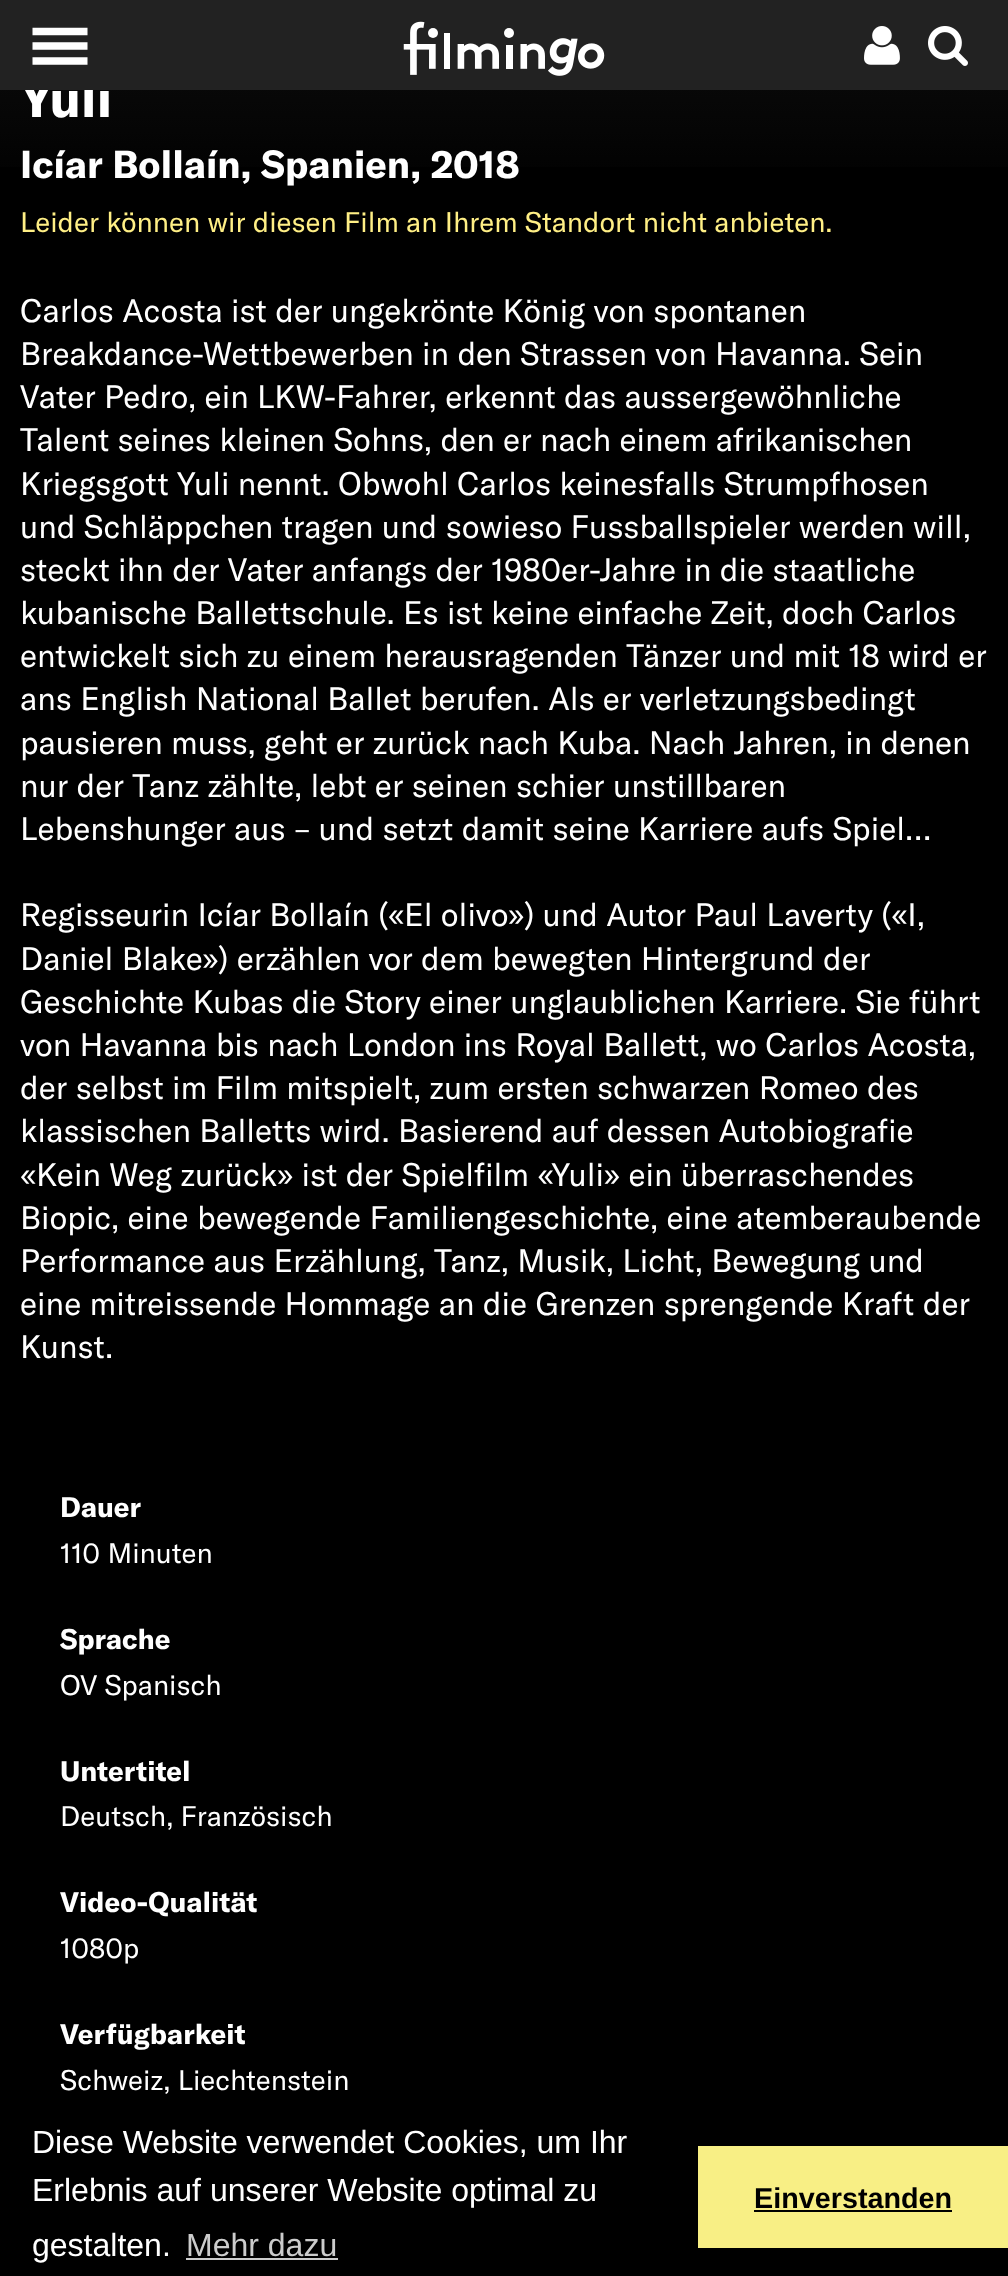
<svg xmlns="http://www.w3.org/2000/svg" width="1008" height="2276">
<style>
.a{font:bold 52px GT America;fill:#fff}
.b{font:bold 38.4px GT America;fill:#fff}
.c{font:28px GT America;fill:#ffef85}
.d{font:32px GT America;fill:#fff}
.e{font:bold 28px GT America;fill:#fff}
.f{font:28px GT America;fill:#fff}
.g{font:32px Liberation Sans;fill:#fff}
.h{font:32px Liberation Sans;fill:#ccc}
.i{font:bold 28.75px Liberation Sans;fill:#000}
</style>
<defs>
<linearGradient id="g1" gradientUnits="userSpaceOnUse" x1="504" y1="-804" x2="504" y2="204"><stop offset="0" stop-color="#222"/><stop offset="0.5" stop-color="#222"/><stop offset="1" stop-color="#000"/></linearGradient>
</defs>
<rect width="100%" height="100%" fill="#000"/>
<path fill="url(#g1)" d="M0 90h1008v77H0z"/>
<path fill="#ccc" d="M186 2258h152v2H186z"/>
<path fill="#f8ef85" d="M698 2146h310v102H698z"/>
<path fill="#000" d="M754 2210h198v2H754z"/>
<text class="a" x="20" y="117">Yuli</text>
<path fill="#222" d="M0 0h1008v90H0z"/>
<path fill="none" stroke="#fff" stroke-width="7.3" d="M32.5 31.5h55m-55 14.5h55m-55 15h55"/>
<circle fill="#fff" cx="509" cy="33" r="5"/>
<circle fill="#fff" cx="433" cy="33" r="5"/>
<image href="3.png" x="403" y="21" width="202" height="55"/>
<image href="1.png" x="864" y="26" width="36" height="39"/>
<image href="2.png" x="928" y="26" width="40" height="40"/>
<text class="b" x="20" y="178">Icíar Bollaín, Spanien, 2018</text>
<text class="c" x="20" y="232">Leider können wir diesen Film an Ihrem Standort nicht anbieten.</text>
<text class="d" x="20" y="322">Carlos Acosta ist der ungekrönte König von spontanen</text>
<text class="d" x="20" y="365">Breakdance-Wettbewerben in den Strassen von Havanna. Sein</text>
<text class="d" x="20" y="408">Vater Pedro, ein LKW-Fahrer, erkennt das aussergewöhnliche</text>
<text class="d" x="20" y="451">Talent seines kleinen Sohns, den er nach einem afrikanischen</text>
<text class="d" x="20" y="495">Kriegsgott Yuli nennt. Obwohl Carlos keinesfalls Strumpfhosen</text>
<text class="d" x="20" y="538">und Schläppchen tragen und sowieso Fussballspieler werden will,</text>
<text class="d" x="20" y="581">steckt ihn der Vater anfangs der 1980er-Jahre in die staatliche</text>
<text class="d" x="20" y="624">kubanische Ballettschule. Es ist keine einfache Zeit, doch Carlos</text>
<text class="d" x="20" y="667">entwickelt sich zu einem herausragenden Tänzer und mit 18 wird er</text>
<text class="d" x="20" y="710">ans English National Ballet berufen. Als er verletzungsbedingt</text>
<text class="d" x="20" y="754">pausieren muss, geht er zurück nach Kuba. Nach Jahren, in denen</text>
<text class="d" x="20" y="797">nur der Tanz zählte, lebt er seinen schier unstillbaren</text>
<text class="d" x="20" y="840">Lebenshunger aus – und setzt damit seine Karriere aufs Spiel…</text>
<text class="d" x="20" y="926">Regisseurin Icíar Bollaín («El olivo») und Autor Paul Laverty («I,</text>
<text class="d" x="20" y="970">Daniel Blake») erzählen vor dem bewegten Hintergrund der</text>
<text class="d" x="20" y="1013">Geschichte Kubas die Story einer unglaublichen Karriere. Sie führt</text>
<text class="d" x="20" y="1056">von Havanna bis nach London ins Royal Ballett, wo Carlos Acosta,</text>
<text class="d" x="20" y="1099">der selbst im Film mitspielt, zum ersten schwarzen Romeo des</text>
<text class="d" x="20" y="1142">klassischen Balletts wird. Basierend auf dessen Autobiografie</text>
<text class="d" x="20" y="1186">«Kein Weg zurück» ist der Spielfilm «Yuli» ein überraschendes</text>
<text class="d" x="20" y="1229">Biopic, eine bewegende Familiengeschichte, eine atemberaubende</text>
<text class="d" x="20" y="1272">Performance aus Erzählung, Tanz, Musik, Licht, Bewegung und</text>
<text class="d" x="20" y="1315">eine mitreissende Hommage an die Grenzen sprengende Kraft der</text>
<text class="d" x="20" y="1358">Kunst.</text>
<text class="e" x="60" y="1517">Dauer</text>
<text class="f" x="60" y="1563">110 Minuten</text>
<text class="e" x="60" y="1649">Sprache</text>
<text class="f" x="60" y="1695">OV Spanisch</text>
<text class="e" x="60" y="1781">Untertitel</text>
<text class="f" x="60" y="1826">Deutsch, Französisch</text>
<text class="e" x="60" y="1912">Video-Qualität</text>
<text class="f" x="60" y="1958">1080p</text>
<text class="e" x="60" y="2044">Verfügbarkeit</text>
<text class="f" x="60" y="2090">Schweiz, Liechtenstein</text>
<text class="g" x="32" y="2153">Diese Website verwendet Cookies, um Ihr</text>
<text class="g" x="32" y="2201">Erlebnis auf unserer Website optimal zu</text>
<text class="g" x="32" y="2256">gestalten.</text>
<text class="h" x="186" y="2256">Mehr dazu</text>
<text class="i" x="754" y="2208">Einverstanden</text>
</svg>
